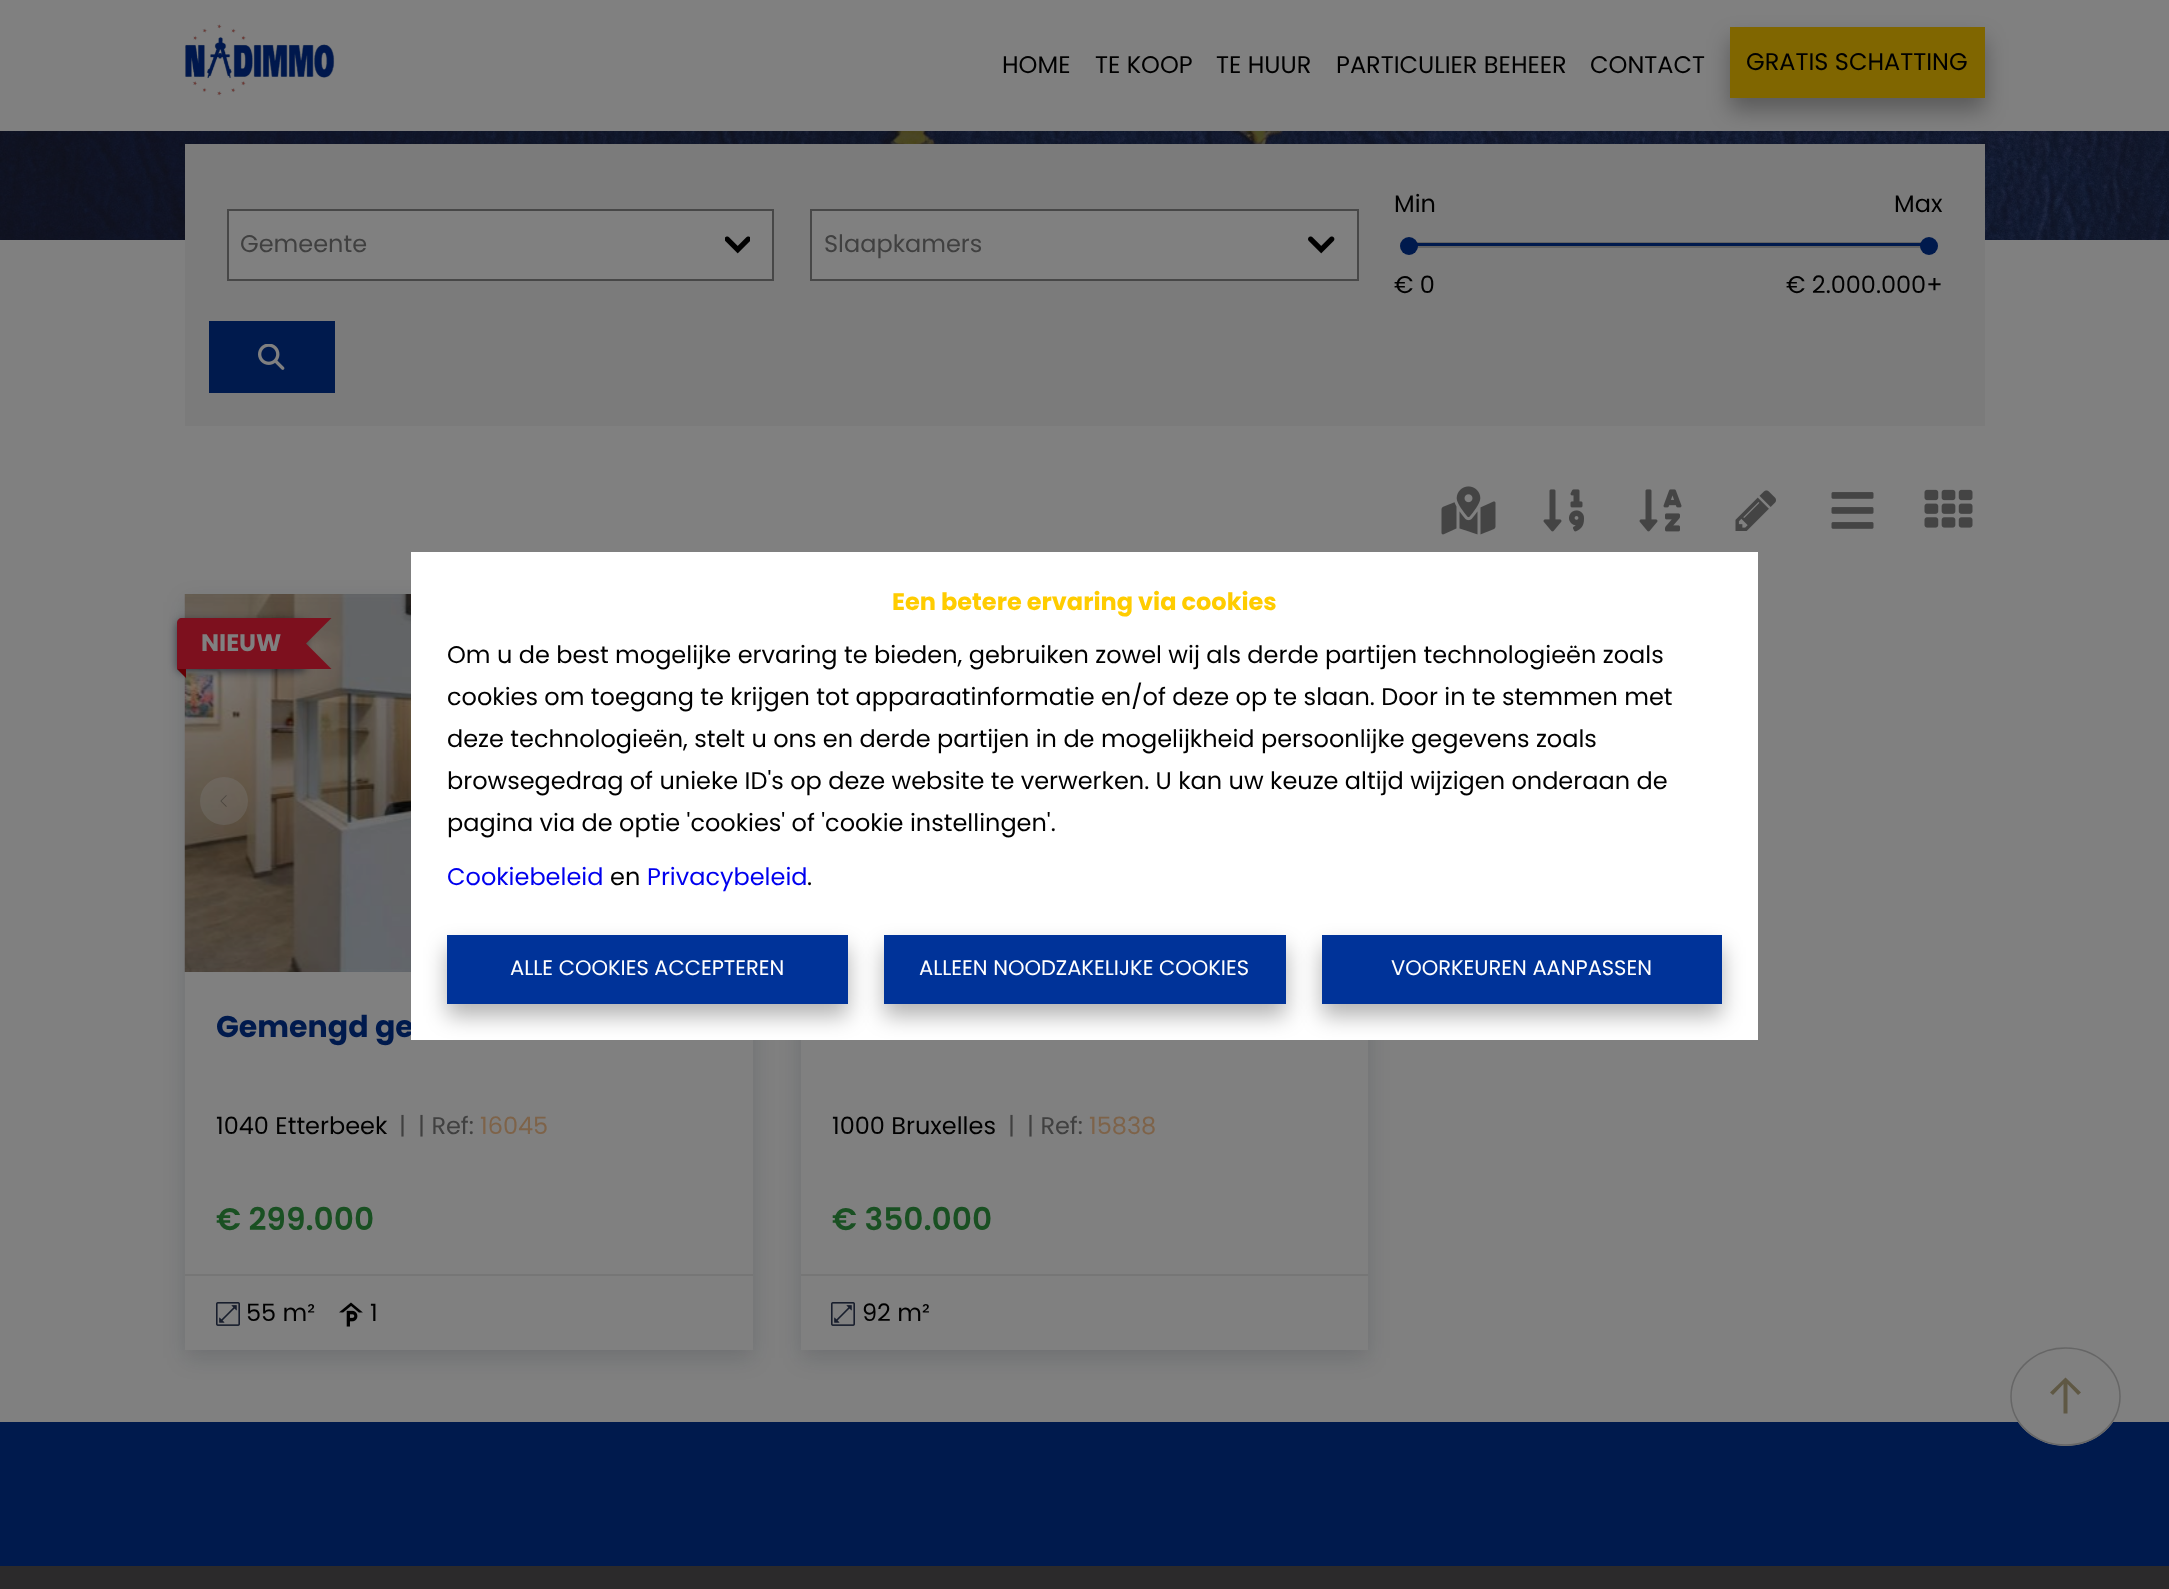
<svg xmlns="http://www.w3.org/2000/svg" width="2169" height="1589">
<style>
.a{font:24px Poppins;fill:#000}
.b{font:24px Poppins;fill:#404040}
.c{font:bold 24px Poppins;fill:#808080}
.d{font:bold 30px Poppins;fill:#001a4d}
.e{font:24px Poppins;fill:#7e6349}
.f{font:600 31.25px Poppins;fill:#195022}
.g{font:bold 24px Poppins;fill:#fc0}
.h{font:24px Poppins;fill:#00e}
.i{font:21px Poppins;fill:#fff}
</style>
<defs>
<clipPath id="clip1"><path d="M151 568h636v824h-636zm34 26h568v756h-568z" clip-rule="evenodd"/></clipPath>
<clipPath id="clip2"><path d="M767 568h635v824h-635zm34 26h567v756h-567z" clip-rule="evenodd"/></clipPath>
</defs>
<rect width="100%" height="100%" fill="#808080"/>
<image href="1.png" x="185" y="24" width="150" height="72"/>
<image href="2.png" x="0" y="131" width="2169" height="109"/>
<path fill="#0000004d" filter="blur(11px)" d="M1730 39h255v71H1730z"/>
<path fill="#806600" d="M1730 27h255v71H1730z"/>
<path fill="#7b7b7b" d="M185 144h1800v282H185z"/>
<path fill="#808080" stroke="#474747" stroke-width="2" d="M228 210h545v70H228z"/>
<image href="3.png" x="725" y="236" width="25" height="18"/>
<path fill="#808080" stroke="#474747" stroke-width="2" d="M811 210h547v70H811z"/>
<image href="4.png" x="1308" y="236" width="27" height="18"/>
<path fill="none" stroke="#636363" stroke-width="2" d="M1408 243h522v4H1408z"/>
<path fill="#001a4d" d="M1409 243h520v3H1409z"/>
<circle fill="#001a4d" cx="1409" cy="246" r="9"/>
<circle fill="#001a4d" cx="1929" cy="246" r="9"/>
<path fill="#001a4d" d="M209 321h126v72H209z"/>
<image href="5.png" x="258" y="344" width="27" height="26"/>
<image href="6.png" x="1441" y="486" width="55" height="49"/>
<image href="7.png" x="1543" y="489" width="41" height="43"/>
<image href="8.png" x="1639" y="489" width="43" height="43"/>
<image href="9.png" x="1735" y="490" width="41" height="41"/>
<image href="10.png" x="1831" y="492" width="43" height="37"/>
<image href="11.png" x="1924" y="489" width="49" height="39"/>
<g clip-path="url(#clip1)">
<path fill="#09112026" filter="blur(11px)" d="M185 602h568v756H185z"/>
</g>
<image href="12.png" x="184" y="594" width="227" height="378"/>
<rect fill="#09112099" filter="blur(4.5px)" x="177" y="621" width="129" height="51" rx="5"/>
<path fill="#7d101e" d="M182 618h124v51h-129v-46c0-3 2-5 5-5z"/>
<path fill="#7d101e" d="M306 643.5v-25.5h25.5z"/>
<path fill="#7d101e" d="M306 669v-25.5l25.5 25.5z"/>
<path fill="#640005" d="M177 669h9v9z"/>
<circle fill="#8080804d" cx="224" cy="801" r="24"/>
<image href="13.png" x="220" y="795" width="7" height="12"/>
<path fill="#767676" d="M185 1274h568v2H185z"/>
<image href="14.png" x="216" y="1302" width="24" height="24"/>
<image href="15.png" x="339" y="1302" width="24" height="25"/>
<g clip-path="url(#clip2)">
<path fill="#09112026" filter="blur(11px)" d="M801 602h567v756H801z"/>
</g>
<path fill="#767676" d="M801 1274h567v2H801z"/>
<image href="14.png" x="831" y="1302" width="24" height="24"/>
<path fill="#001a4d" d="M0 1422h2169v144H0z"/>
<ellipse fill="#808080" cx="2065.5" cy="1396.5" rx="55.5" ry="49.5"/>
<path fill="none" stroke="#666" stroke-width="1.5" d="M2065.5 1348c30 0 54.5 21.5 54.5 48.5c0 27-24.5 48.5-54.5 48.5c-30 0-54.5-21.5-54.5-48.5c0-27 24.5-48.5 54.5-48.5z"/>
<path fill="#5f5844" d="M2063.5 1384l-10.5 11l-3-2.5l15.5-15l15.5 15l-3 2.5l-10.5-11v29.5h-4z"/>
<path fill="#2b2a2b" d="M0 1566h2169v23H0z"/>
<text class="a" x="1002" y="73">HOME</text>
<text class="a" x="1095" y="73">TE KOOP</text>
<text class="a" x="1216" y="73">TE HUUR</text>
<text class="a" x="1336" y="73">PARTICULIER BEHEER</text>
<text class="a" x="1590" y="73">CONTACT</text>
<text class="a" x="1746" y="70">GRATIS SCHATTING</text>
<text class="b" x="240" y="252">Gemeente</text>
<text class="b" x="824" y="252">Slaapkamers</text>
<text class="a" x="1394" y="212">Min</text>
<text class="a" x="1894" y="212">Max</text>
<text class="a" x="1394" y="293">€ 0</text>
<text class="a" x="1786" y="293">€ 2.000.000+</text>
<text class="c" x="201" y="651">NIEUW</text>
<text class="d" x="216" y="1037">Gemengd ge</text>
<text class="a" x="216" y="1134">1040 Etterbeek</text>
<text class="b" x="399" y="1134">|</text>
<text class="b" x="418" y="1134">| Ref:</text>
<text class="e" x="480" y="1134">16045</text>
<text class="f" x="216" y="1230">€ 299.000</text>
<text class="a" x="246" y="1321">55 m²</text>
<text class="a" x="370" y="1321">1</text>
<text class="a" x="832" y="1134">1000 Bruxelles</text>
<text class="b" x="1008" y="1134">|</text>
<text class="b" x="1027" y="1134">| Ref:</text>
<text class="e" x="1089" y="1134">15838</text>
<text class="f" x="832" y="1230">€ 350.000</text>
<text class="a" x="862" y="1321">92 m²</text>
<path fill="#fff" d="M411 552h1347v488H411z"/>
<text class="g" x="892" y="610">Een betere ervaring via cookies</text>
<text class="a" x="447" y="663">Om u de best mogelijke ervaring te bieden, gebruiken zowel wij als derde partijen technologieën zoals</text>
<text class="a" x="447" y="705">cookies om toegang te krijgen tot apparaatinformatie en/of deze op te slaan. Door in te stemmen met</text>
<text class="a" x="447" y="747">deze technologieën, stelt u ons en derde partijen in de mogelijkheid persoonlijke gegevens zoals</text>
<text class="a" x="447" y="789">browsegedrag of unieke ID's op deze website te verwerken. U kan uw keuze altijd wijzigen onderaan de</text>
<text class="a" x="447" y="831">pagina via de optie 'cookies' of 'cookie instellingen'.</text>
<text class="h" x="447" y="885">Cookiebeleid</text>
<text class="a" x="610" y="885">en</text>
<text class="h" x="647" y="885">Privacybeleid</text>
<text class="a" x="807" y="885">.</text>
<path fill="#0000004d" filter="blur(11px)" d="M447 947h401v69H447z"/>
<path fill="#039" d="M447 935h401v69H447z"/>
<text class="i" x="510" y="975">ALLE COOKIES ACCEPTEREN</text>
<path fill="#0000004d" filter="blur(11px)" d="M884 947h402v69H884z"/>
<path fill="#039" d="M884 935h402v69H884z"/>
<text class="i" x="919" y="975">ALLEEN NOODZAKELIJKE COOKIES</text>
<path fill="#0000004d" filter="blur(11px)" d="M1322 947h400v69H1322z"/>
<path fill="#039" d="M1322 935h400v69H1322z"/>
<text class="i" x="1391" y="975">VOORKEUREN AANPASSEN</text>
</svg>
